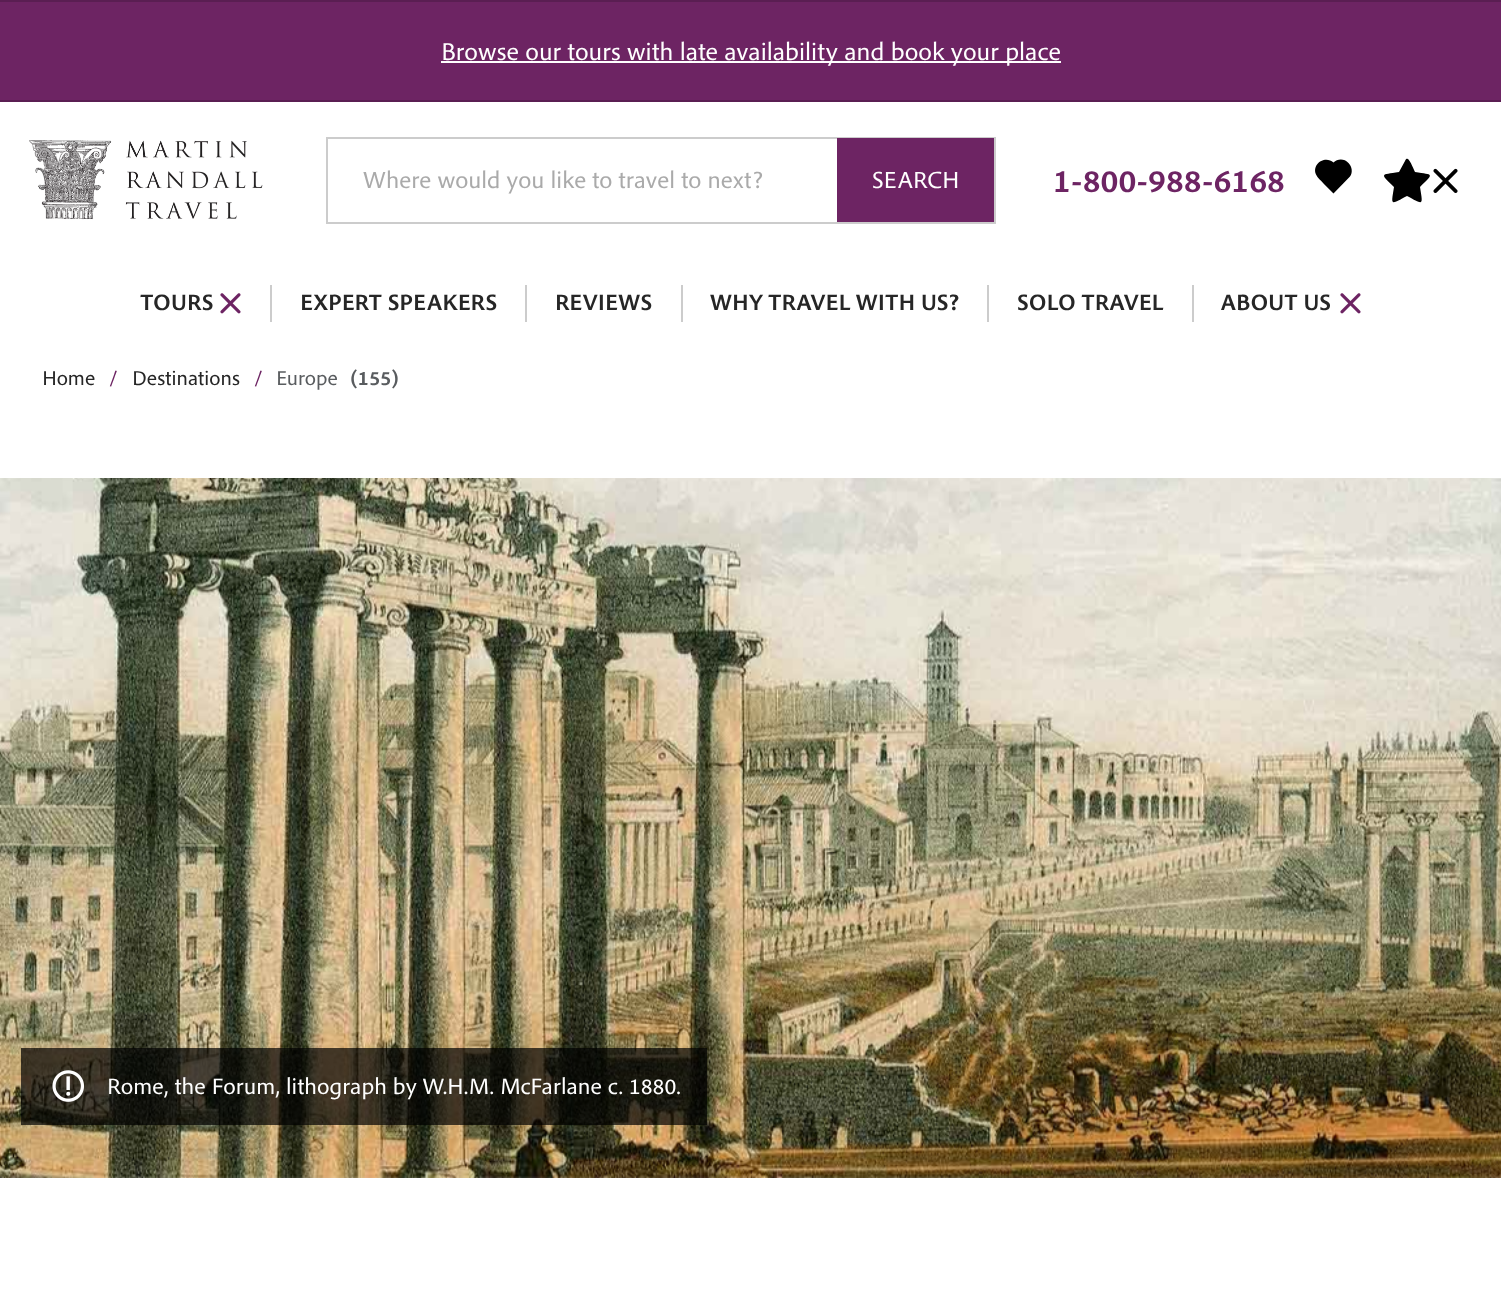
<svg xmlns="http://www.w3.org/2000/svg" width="1501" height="1298">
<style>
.a{font:25.5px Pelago;fill:#fff}
.b{font:24.5px Pelago;fill:#aaa}
.c{font:24.5px Pelago;fill:#fff}
.d{font:600 33.5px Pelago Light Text;fill:#6d2463}
.e{font:600 23.4px Pelago Light Text;fill:#262626}
.f{font:21px Pelago;fill:#262626}
.g{font:21px Pelago;fill:#6d2463}
.h{font:21px Pelago;fill:#595c5f}
.i{font:600 21px Pelago Light Text;fill:#595c5f}
.j{font:23.4px Pelago;fill:#fff}
</style>
<rect width="100%" height="100%" fill="#fff"/>
<path fill="#6d2463" stroke="#5a1e52" stroke-width="2" d="M-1 1h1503v100H-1z"/>
<path fill="#fff" d="M441 61h620v2H441z"/>
<image href="1.png" x="29" y="140" width="234" height="80"/>
<path fill="none" stroke="#ccc" stroke-width="2" d="M327 138h668v85H327z"/>
<path fill="#6d2463" d="M837 138h157v84H837z"/>
<path fill="#000" d="M1348.5 163c-4-4.5-11-4.5-15-.5c-8.5-7.5-22 1.5-17.5 12c1.5 3.5 5 6 7.5 9l10 10l16.5-17c3-4 2-10-1.5-13.5z"/>
<path fill="#000" d="M1405 161l-6 11c-19 3-19 1-5 15c-3 19-4 18 13 9c17 9 16 10 13-9c14-14 14-12-5-15c-3-6-7-18-10-11z"/>
<image href="2.png" x="1433" y="168" width="25" height="25"/>
<path fill="#ccc" d="M270 285h2v37H270z"/>
<image href="3.png" x="220" y="293" width="21" height="21"/>
<path fill="#ccc" d="M525 285h2v37H525z"/>
<path fill="#ccc" d="M681 285h2v37H681z"/>
<path fill="#ccc" d="M987 285h2v37H987z"/>
<path fill="#ccc" d="M1192 285h2v37H1192z"/>
<image href="3.png" x="1340" y="293" width="21" height="21"/>
<image href="4.png" x="0" y="478" width="1501" height="700"/>
<path fill="#000000b3" d="M21 1048h686v77H21z"/>
<image href="5.png" x="52" y="1070" width="32" height="32"/>
<text class="a" x="441" y="60">Browse our tours with late availability and book your place</text>
<text class="b" x="363" y="188">Where would you like to travel to next?</text>
<text class="c" x="872" y="188">SEARCH</text>
<text class="d" x="1053" y="192">1-800-988-6168</text>
<text class="e" x="140" y="310">TOURS</text>
<text class="e" x="300" y="310">EXPERT SPEAKERS</text>
<text class="e" x="555" y="310">REVIEWS</text>
<text class="e" x="710" y="310">WHY TRAVEL WITH US?</text>
<text class="e" x="1017" y="310">SOLO TRAVEL</text>
<text class="e" x="1221" y="310">ABOUT US</text>
<text class="f" x="42" y="385">Home</text>
<text class="g" x="109" y="385">/</text>
<text class="f" x="132" y="385">Destinations</text>
<text class="g" x="254" y="385">/</text>
<text class="h" x="276" y="385">Europe</text>
<text class="i" x="350" y="385">(155)</text>
<text class="j" x="107" y="1094">Rome, the Forum, lithograph by W.H.M. McFarlane c. 1880.</text>
</svg>
